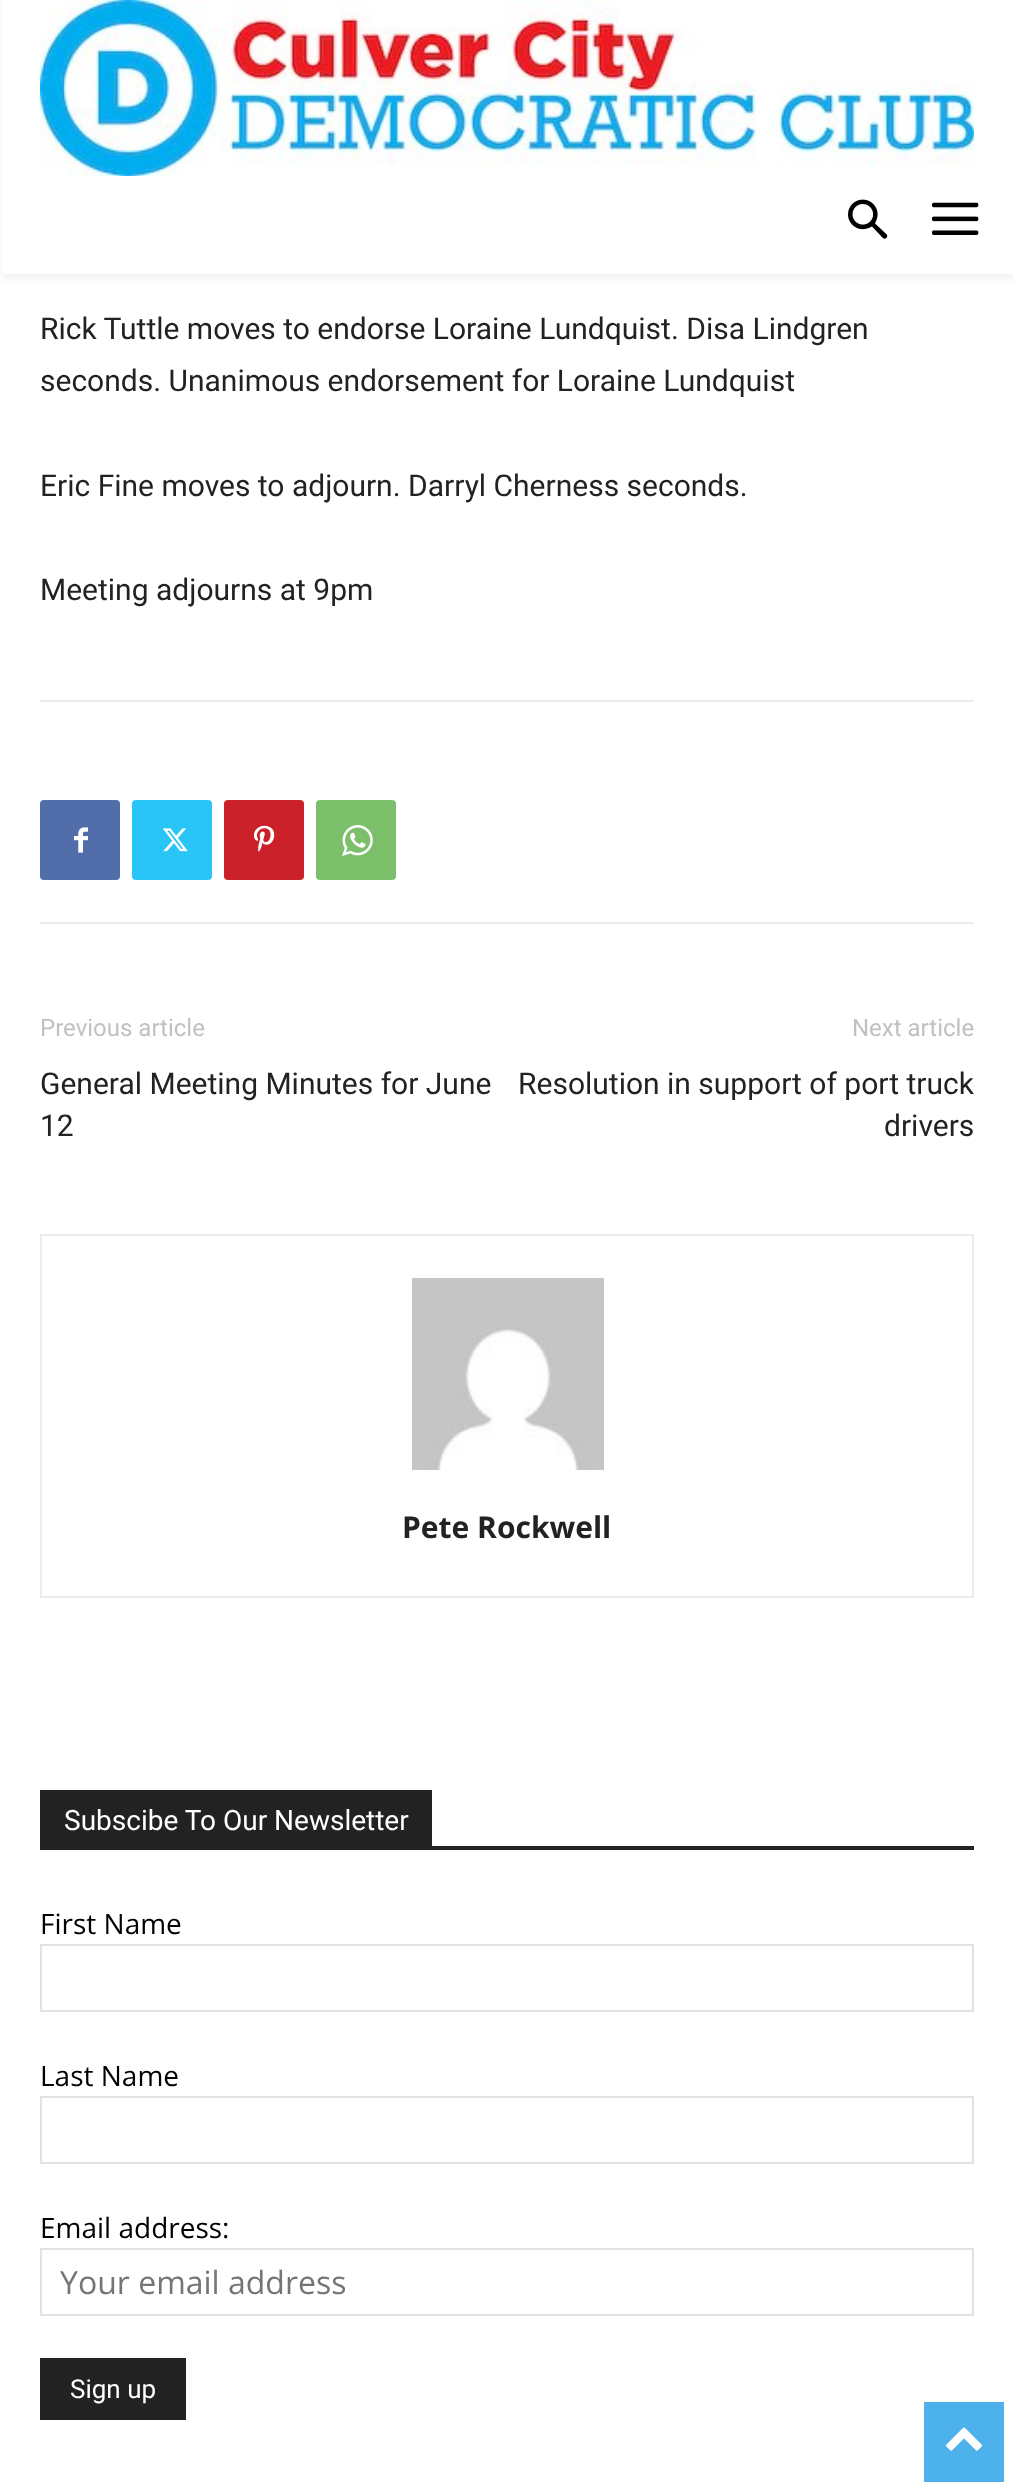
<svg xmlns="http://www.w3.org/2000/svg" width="1013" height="2489">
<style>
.a{font:30px Roboto;fill:#222}
.b{font:24px Roboto;fill:#c1c1c1}
.c{font:bold 30px Open Sans;fill:#222}
.d{font:28px Roboto;fill:#fff}
.e{font:28px Open Sans;fill:#000}
.f{font:32px Open Sans;fill:#757575}
.g{font:26px Roboto;fill:#fff}
</style>
<defs>
<clipPath id="clip1"><path d="M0 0h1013v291h-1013zm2 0h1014v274h-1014z" clip-rule="evenodd"/></clipPath>
</defs>
<rect width="100%" height="100%" fill="#fff"/>
<image href="1.png" x="40" y="0" width="934" height="176"/>
<image href="2.png" x="848" y="199" width="40" height="40"/>
<image href="3.png" x="932" y="202" width="47" height="33"/>
<g clip-path="url(#clip1)">
<path fill="#0000000f" filter="blur(4px)" d="M2 4h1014v274H2z"/>
</g>
<path fill="#ededed" d="M40 700h934v2H40z"/>
<path fill="#ededed" d="M40 922h934v2H40z"/>
<rect fill="#516eab" x="40" y="800" width="80" height="80" rx="4"/>
<image href="4.png" x="74" y="827" width="14" height="26"/>
<rect fill="#29c5f6" x="132" y="800" width="80" height="80" rx="4"/>
<image href="5.png" x="162" y="828" width="26" height="24"/>
<rect fill="#ca212a" x="224" y="800" width="80" height="80" rx="4"/>
<image href="6.png" x="254" y="825" width="21" height="27"/>
<rect fill="#7bbf6a" x="316" y="800" width="80" height="80" rx="4"/>
<image href="7.png" x="342" y="825" width="31" height="31"/>
<path fill="none" stroke="#ededed" stroke-width="2" d="M41 1235h932v362H41z"/>
<image href="8.png" x="412" y="1278" width="192" height="192"/>
<path fill="#222" d="M40 1846h934v4H40z"/>
<path fill="#222" d="M40 1790h392v56H40z"/>
<path fill="none" stroke="#e1e1e1" stroke-width="2" d="M41 1945h932v66H41z"/>
<path fill="none" stroke="#e1e1e1" stroke-width="2" d="M41 2097h932v66H41z"/>
<path fill="none" stroke="#e1e1e1" stroke-width="2" d="M41 2249h932v66H41z"/>
<path fill="#222" d="M40 2358h146v62H40z"/>
<path fill="#4db2ec" d="M924 2402h80v80H924z"/>
<image href="9.png" x="946" y="2427" width="36" height="24"/>
<text class="a" x="40" y="339">Rick Tuttle moves to endorse Loraine Lundquist. Disa Lindgren</text>
<text class="a" x="40" y="391">seconds. Unanimous endorsement for Loraine Lundquist</text>
<text class="a" x="40" y="496">Eric Fine moves to adjourn. Darryl Cherness seconds.</text>
<text class="a" x="40" y="600">Meeting adjourns at 9pm</text>
<text class="b" x="40" y="1036">Previous article</text>
<text class="a" x="40" y="1094">General Meeting Minutes for June</text>
<text class="a" x="40" y="1136">12</text>
<text class="b" x="852" y="1036">Next article</text>
<text class="a" x="518" y="1094">Resolution in support of port truck</text>
<text class="a" x="884" y="1136">drivers</text>
<text class="c" x="402" y="1538">Pete Rockwell</text>
<text class="d" x="64" y="1830">Subscibe To Our Newsletter</text>
<text class="e" x="40" y="1934">First Name</text>
<text class="e" x="40" y="2086">Last Name</text>
<text class="e" x="40" y="2238">Email address:</text>
<text class="f" x="60" y="2294">Your email address</text>
<text class="g" x="70" y="2398">Sign up</text>
</svg>
